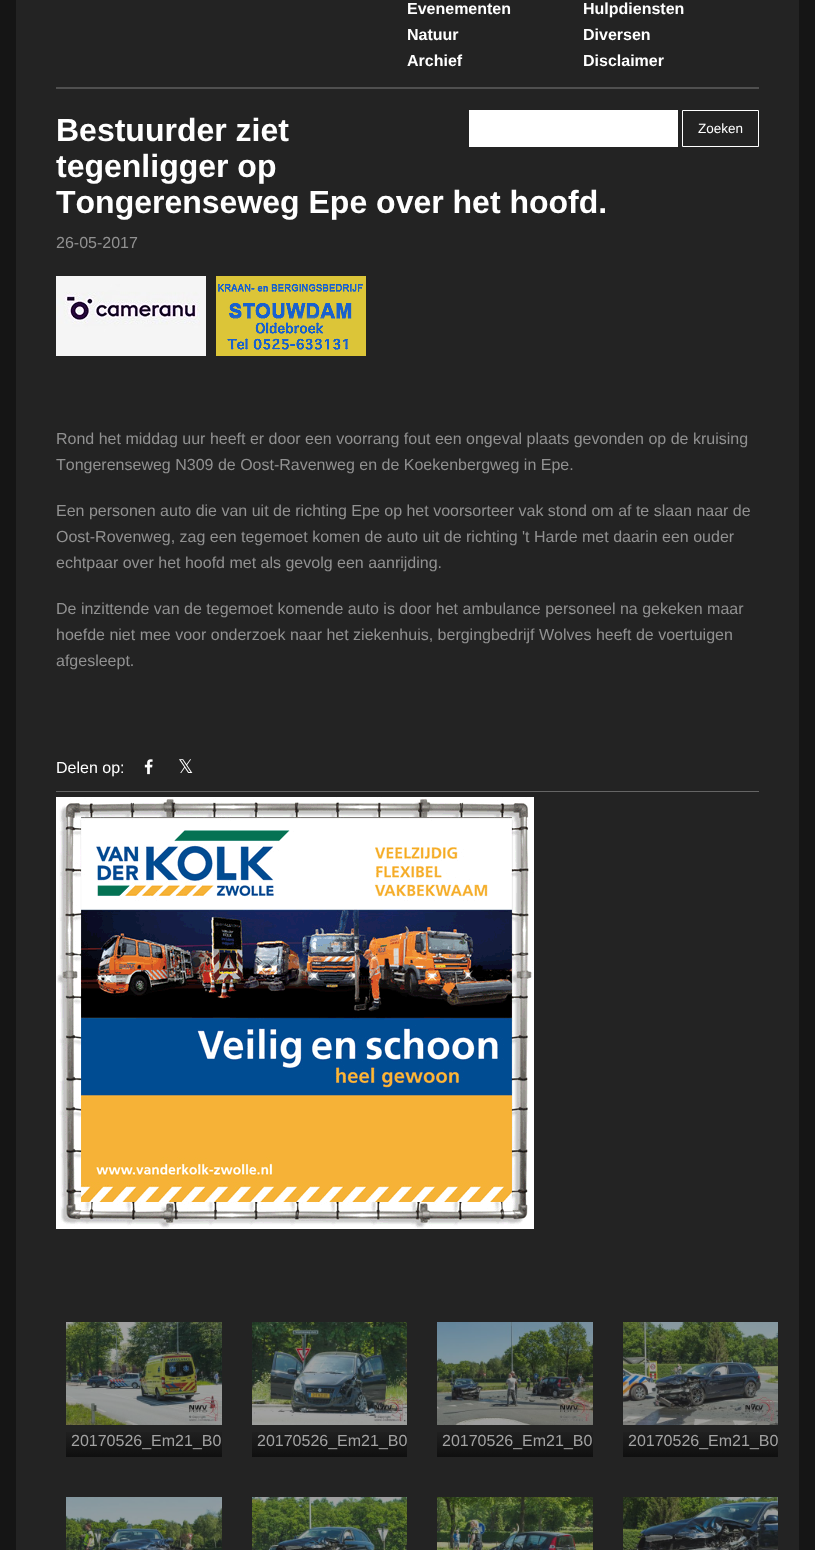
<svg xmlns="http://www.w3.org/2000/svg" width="815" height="1550">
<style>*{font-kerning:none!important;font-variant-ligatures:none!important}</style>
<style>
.a{font:bold 16px Arimo;fill:#fff}
.b{font:bold 32px Arimo;fill:#fff}
.c{font:16px Arimo;fill:#919191}
.d{font:16px Arimo;fill:#fff}
.e{font:19px DejaVu Sans;fill:#fff}
.f{font:13.5px Liberation Sans;fill:#fff}
.g{font:16px Arimo;fill:#a2a2a2}
</style>
<defs>
<linearGradient id="g1" gradientUnits="userSpaceOnUse" x1="144" y1="1428" x2="144" y2="1457"><stop offset="0" stop-color="#232323"/><stop offset="1" stop-color="#0f0f0f"/></linearGradient>
<linearGradient id="g2" gradientUnits="userSpaceOnUse" x1="330" y1="1428" x2="330" y2="1457"><stop offset="0" stop-color="#232323"/><stop offset="1" stop-color="#0f0f0f"/></linearGradient>
<linearGradient id="g3" gradientUnits="userSpaceOnUse" x1="515" y1="1428" x2="515" y2="1457"><stop offset="0" stop-color="#232323"/><stop offset="1" stop-color="#0f0f0f"/></linearGradient>
<linearGradient id="g4" gradientUnits="userSpaceOnUse" x1="701" y1="1428" x2="701" y2="1457"><stop offset="0" stop-color="#232323"/><stop offset="1" stop-color="#0f0f0f"/></linearGradient>
</defs>
<rect width="100%" height="100%" fill="#151515"/>
<path fill="#232323" d="M16 0h783v1550H16z"/>
<path fill="#4f4f4f" d="M56 87h703v2H56z"/>
<image href="1.png" x="56" y="276" width="150" height="80"/>
<image href="2.png" x="216" y="276" width="150" height="80"/>
<path fill="#656565" d="M56 791h703v1H56z"/>
<image href="3.png" x="144" y="759" width="9" height="16"/>
<path fill="#fff" d="M469 110h209v37H469z"/>
<path fill="none" stroke="#fff" d="M682.5 110.5h76v36H682.5z"/>
<image href="4.png" x="56" y="797" width="478" height="432"/>
<image href="5.png" x="66" y="1322" width="156" height="103"/>
<path fill="url(#g1)" d="M66 1432h156v25H66z"/>
<image href="6.png" x="252" y="1322" width="155" height="103"/>
<path fill="url(#g2)" d="M252 1432h155v25H252z"/>
<image href="7.png" x="437" y="1322" width="156" height="103"/>
<path fill="url(#g3)" d="M437 1432h156v25H437z"/>
<image href="8.png" x="623" y="1322" width="155" height="103"/>
<path fill="url(#g4)" d="M623 1432h155v25H623z"/>
<image href="9.png" x="66" y="1497" width="156" height="53"/>
<image href="10.png" x="252" y="1497" width="155" height="53"/>
<image href="11.png" x="437" y="1497" width="156" height="53"/>
<image href="12.png" x="623" y="1497" width="155" height="53"/>
<text class="a" x="407" y="14">Evenementen</text>
<text class="a" x="583" y="14">Hulpdiensten</text>
<text class="a" x="407" y="40">Natuur</text>
<text class="a" x="583" y="40">Diversen</text>
<text class="a" x="407" y="66">Archief</text>
<text class="a" x="583" y="66">Disclaimer</text>
<text class="b" x="56" y="141">Bestuurder ziet</text>
<text class="b" x="56" y="177">tegenligger op</text>
<text class="b" x="56" y="213">Tongerenseweg Epe over het hoofd.</text>
<text class="c" x="56" y="248">26-05-2017</text>
<text class="c" x="56" y="444">Rond het middag uur heeft er door een voorrang fout een ongeval plaats gevonden op de kruising</text>
<text class="c" x="56" y="470">Tongerenseweg N309 de Oost-Ravenweg en de Koekenbergweg in Epe.</text>
<text class="c" x="56" y="516">Een personen auto die van uit de richting Epe op het voorsorteer vak stond om af te slaan naar de</text>
<text class="c" x="56" y="542">Oost-Rovenweg, zag een tegemoet komen de auto uit de richting 't Harde met daarin een ouder</text>
<text class="c" x="56" y="568">echtpaar over het hoofd met als gevolg een aanrijding.</text>
<text class="c" x="56" y="614">De inzittende van de tegemoet komende auto is door het ambulance personeel na gekeken maar</text>
<text class="c" x="56" y="640">hoefde niet mee voor onderzoek naar het ziekenhuis, bergingbedrijf Wolves heeft de voertuigen</text>
<text class="c" x="56" y="666">afgesleept.</text>
<text class="d" x="56" y="773">Delen op:</text>
<text class="e" x="178" y="773">𝕏</text>
<text class="f" x="698" y="133">Zoeken</text>
<text class="g" x="71" y="1446">20170526_Em21_B0</text>
<text class="g" x="257" y="1446">20170526_Em21_B0</text>
<text class="g" x="442" y="1446">20170526_Em21_B0</text>
<text class="g" x="628" y="1446">20170526_Em21_B0</text>
</svg>
